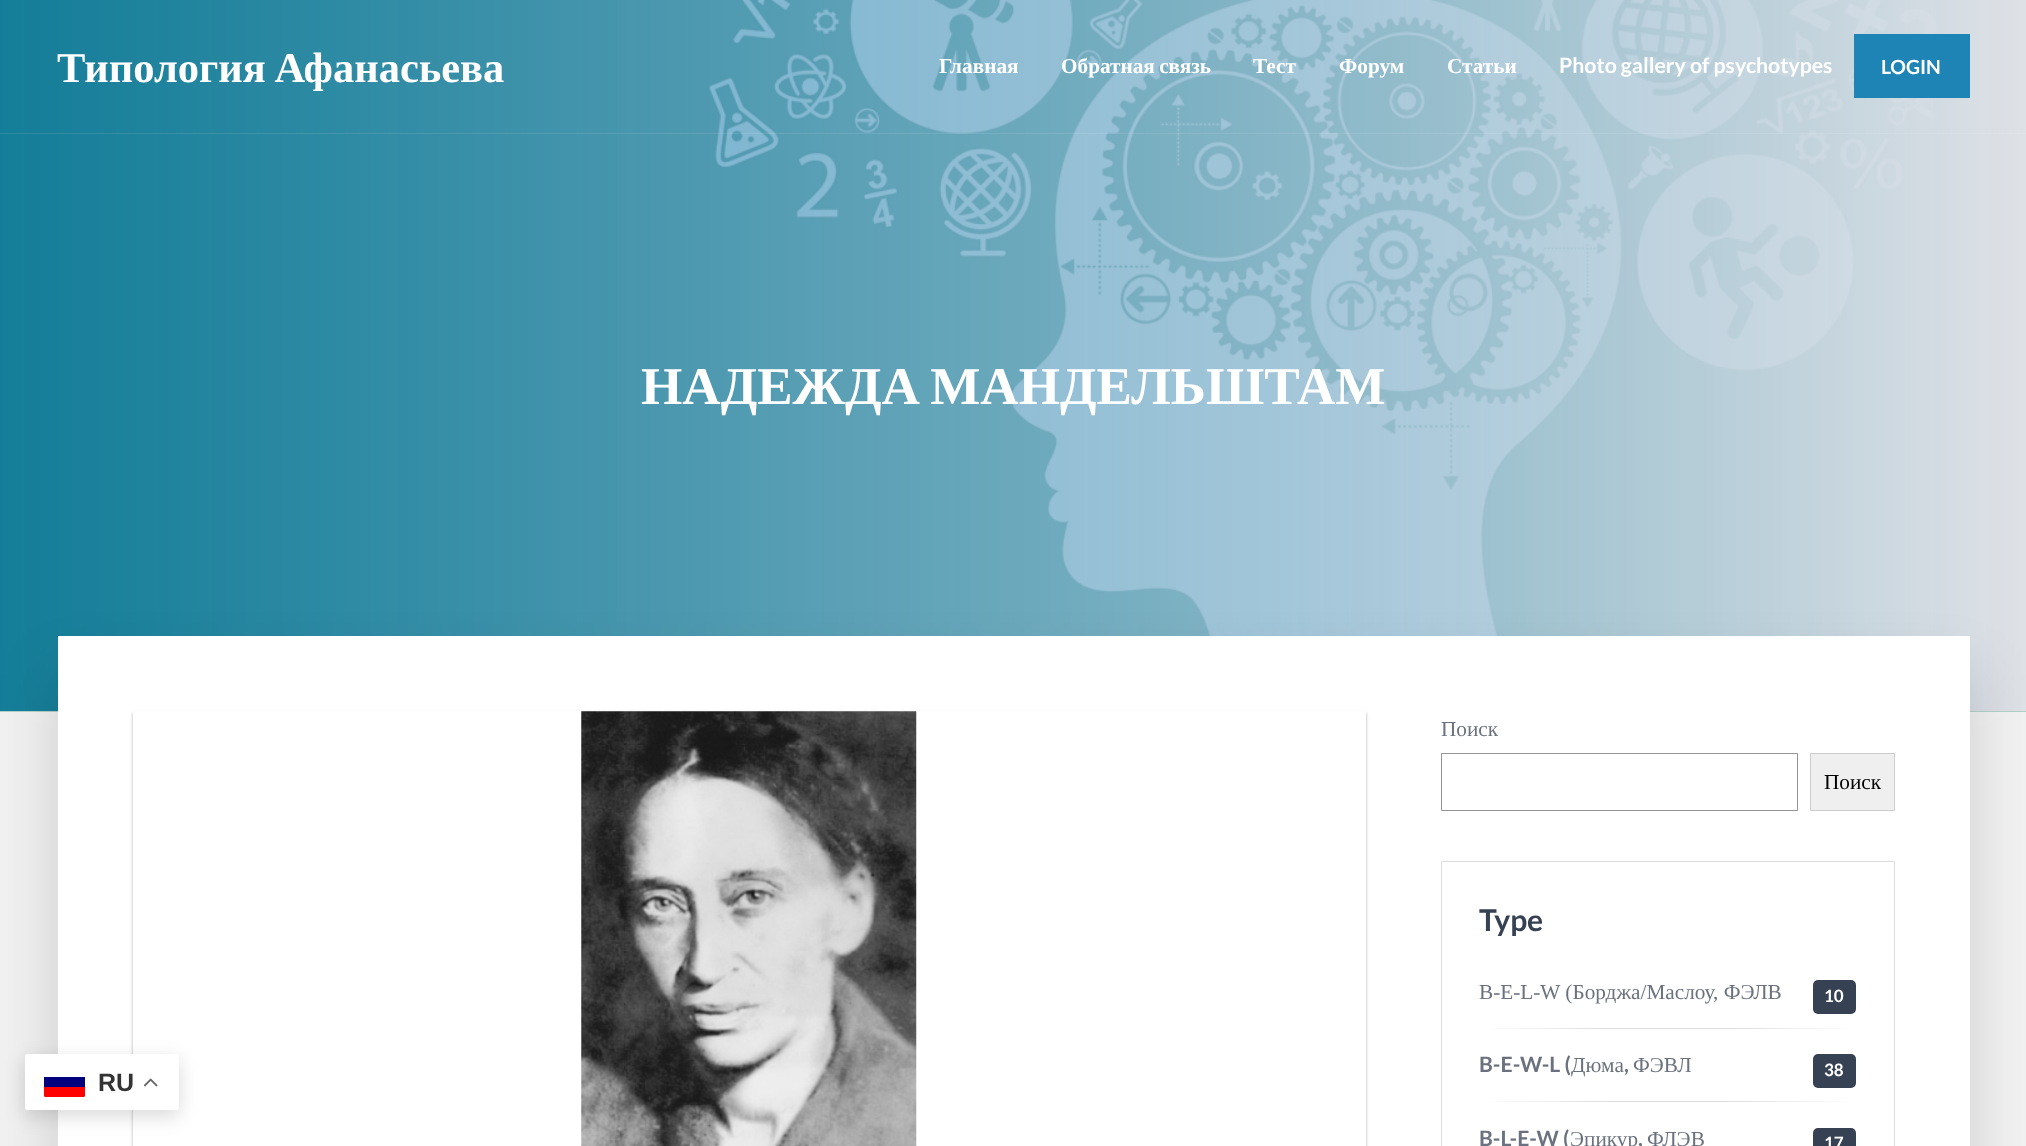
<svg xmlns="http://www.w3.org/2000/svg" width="2026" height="1146">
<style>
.a{font:bold 42.5px Liberation Serif;fill:#fff}
.b{font:bold 21.25px Liberation Serif;fill:#fff}
.c{font:bold 21.25px Lato;fill:#fff}
.d{font:bold 19.5px Lato;fill:#fff}
.e{font:bold 53.1px Liberation Serif;fill:#fff}
.f{font:bold 25px Liberation Sans;fill:#333}
.g{font:21.25px Liberation Serif;fill:#6b717e}
.h{font:21.25px Liberation Serif;fill:#000}
.i{font:bold 30px Lato;fill:#364253}
.j{font:bold 17px Lato;fill:#fff}
.k{font:bold 21.25px Lato;fill:#6b717e}
</style>
<defs>
<clipPath id="clip1"><rect x="44" y="1066" width="41" height="32" rx="4"/></clipPath>
<linearGradient id="g1" gradientUnits="userSpaceOnUse" x1="1480" y1="1028" x2="1856" y2="1028"><stop offset="0" stop-color="#fff"/><stop offset="0.33" stop-color="#ddd"/><stop offset="0.67" stop-color="#ddd"/><stop offset="1" stop-color="#fff"/></linearGradient>
<linearGradient id="g2" gradientUnits="userSpaceOnUse" x1="1480" y1="1102" x2="1856" y2="1102"><stop offset="0" stop-color="#fff"/><stop offset="0.33" stop-color="#ddd"/><stop offset="0.67" stop-color="#ddd"/><stop offset="1" stop-color="#fff"/></linearGradient>
</defs>
<rect width="100%" height="100%" fill="#f1f1f1"/>
<image href="1.png" x="0" y="0" width="2026" height="712"/>
<path fill="#ffffff1a" d="M0 133h2026v1H0z"/>
<path fill="#1d84b5" d="M1854 34h116v64H1854z"/>
<path fill="#01010126" filter="blur(31px)" d="M58 674h1912v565H58z"/>
<path fill="#fff" d="M58 636h1912v510H58z"/>
<path fill="#0000003d" filter="blur(1px)" d="M133 713h1233v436H133z"/>
<path fill="#0000001f" filter="blur(2px)" d="M133 713h1233v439H133z"/>
<path fill="#fff" d="M133 711h1233v435H133z"/>
<rect fill="#00000026" filter="blur(9.5px)" x="25" y="1060" width="154" height="56" rx="2.5"/>
<rect fill="#fff" x="25" y="1054" width="154" height="56" rx="2.5"/>
<g clip-path="url(#clip1)">
<path fill="#01017e" d="M44 1077h41v20H44z"/>
<path fill="#fe0101" d="M44 1087h41v10H44z"/>
</g>
<image href="2.png" x="144" y="1078" width="14" height="9"/>
<image href="3.png" x="581" y="711" width="336" height="435"/>
<path fill="none" stroke="#949494" d="M1441.5 753.5h356v57H1441.5z"/>
<path fill="#efefef" stroke="#ccc" d="M1810.5 753.5h84v57H1810.5z"/>
<path fill="none" stroke="#ddd" d="M1441.5 861.5h453v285H1441.5z"/>
<rect fill="#364253" x="1813" y="980" width="43" height="34" rx="5"/>
<path fill="url(#g1)" d="M1489 1028h358v1H1489z"/>
<rect fill="#364253" x="1813" y="1054" width="43" height="34" rx="5"/>
<path fill="url(#g2)" d="M1489 1101h358v1H1489z"/>
<rect fill="#364253" x="1813" y="1128" width="43" height="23" rx="5"/>
<text class="a" x="57" y="82" word-spacing="-2">Типология Афанасьева</text>
<text class="b" x="939" y="73">Главная</text>
<text class="b" x="1061" y="73" word-spacing="-1">Обратная связь</text>
<text class="b" x="1253" y="73">Тест</text>
<text class="b" x="1339" y="73">Форум</text>
<text class="b" x="1447" y="73">Статьи</text>
<text class="c" x="1559" y="73">Photo gallery of psychotypes</text>
<text class="d" x="1881" y="74">LOGIN</text>
<text class="e" x="641" y="404" word-spacing="-3">НАДЕЖДА МАНДЕЛЬШТАМ</text>
<text class="f" x="98" y="1091">RU</text>
<text class="g" x="1441" y="736">Поиск</text>
<text class="h" x="1824" y="789">Поиск</text>
<text class="i" x="1479" y="931">Type</text>
<text class="g" x="1479" y="999">B-E-L-W (Борджа/Маслоу, ФЭЛВ</text>
<text class="j" x="1824" y="1002">10</text>
<text class="k" x="1479" y="1072">B-E-W-L (</text>
<text class="g" x="1571" y="1072">Дюма</text>
<text class="k" x="1624" y="1072">,</text>
<text class="g" x="1633" y="1072">ФЭВЛ</text>
<text class="j" x="1824" y="1076">38</text>
<text class="k" x="1479" y="1146">B-L-E-W (</text>
<text class="g" x="1570" y="1146">Эпикур</text>
<text class="k" x="1638" y="1146">,</text>
<text class="g" x="1647" y="1146">ФЛЭВ</text>
<text class="j" x="1824" y="1149">17</text>
</svg>
